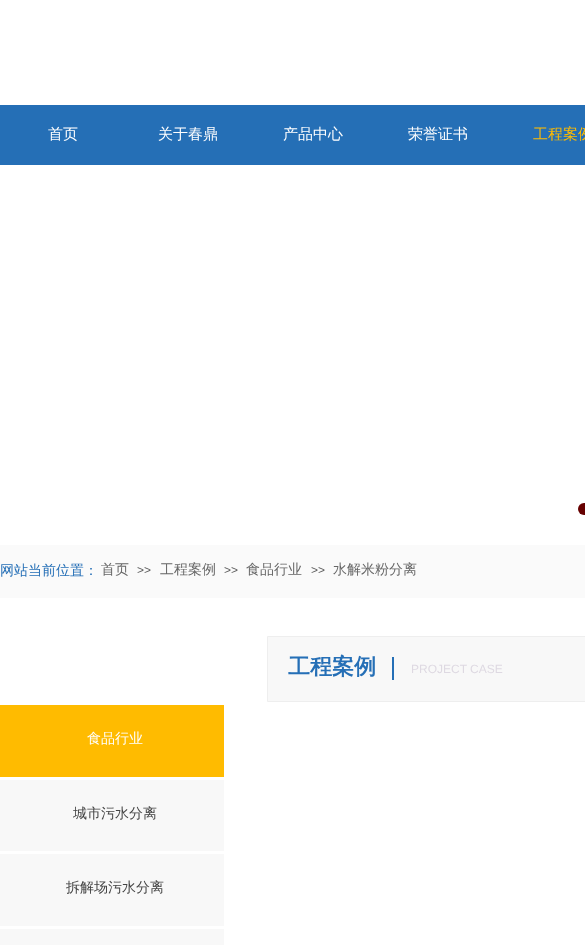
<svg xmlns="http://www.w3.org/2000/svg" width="585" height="945">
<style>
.a{font:500 15px WenQuanYi Zen Hei;fill:#fff}
.b{font:500 15px WenQuanYi Zen Hei;fill:#fb0}
.c{font:500 14px WenQuanYi Zen Hei;fill:#256fb6}
.d{font:500 14px WenQuanYi Zen Hei;fill:#666}
.e{font:12px Liberation Sans;fill:#5a5a5a}
.f{font:bold 22px WenQuanYi Zen Hei;fill:#256fb6}
.g{font:12px Liberation Sans;fill:#ded9e2}
.h{font:500 14px WenQuanYi Zen Hei;fill:#fff}
.i{font:500 14px WenQuanYi Zen Hei;fill:#434343}
</style>
<rect width="100%" height="100%" fill="#fff"/>
<path fill="#256fb6" d="M0 105h585v60H0z"/>
<circle fill="#600" cx="584" cy="509" r="6"/>
<path fill="#fafafa" d="M0 545h585v53H0z"/>
<path fill="#f8f8f8" stroke="#eee" d="M267.5 636.5h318v65H267.5z"/>
<path fill="#256fb6" d="M392 657h2v23H392z"/>
<path fill="#fb0" d="M0 705h224v72H0z"/>
<path fill="#f8f8f8" d="M0 780h224v71H0z"/>
<path fill="#f8f8f8" d="M0 854h224v72H0z"/>
<path fill="#f8f8f8" d="M0 929h224v16H0z"/>
<text class="a" x="48" y="139">首页</text>
<text class="a" x="158" y="139">关于春鼎</text>
<text class="a" x="283" y="139">产品中心</text>
<text class="a" x="408" y="139">荣誉证书</text>
<text class="b" x="533" y="139">工程案例</text>
<text class="c" x="0" y="575">网站当前位置：</text>
<text class="d" x="101" y="574">首页</text>
<text class="e" x="137" y="574">&gt;&gt;</text>
<text class="d" x="160" y="574">工程案例</text>
<text class="e" x="224" y="574">&gt;&gt;</text>
<text class="d" x="246" y="574">食品行业</text>
<text class="e" x="311" y="574">&gt;&gt;</text>
<text class="d" x="333" y="574">水解米粉分离</text>
<text class="f" x="288" y="674">工程案例</text>
<text class="g" x="411" y="673">PROJECT CASE</text>
<text class="h" x="87" y="743">食品行业</text>
<text class="i" x="73" y="818">城市污水分离</text>
<text class="i" x="66" y="892">拆解场污水分离</text>
</svg>
